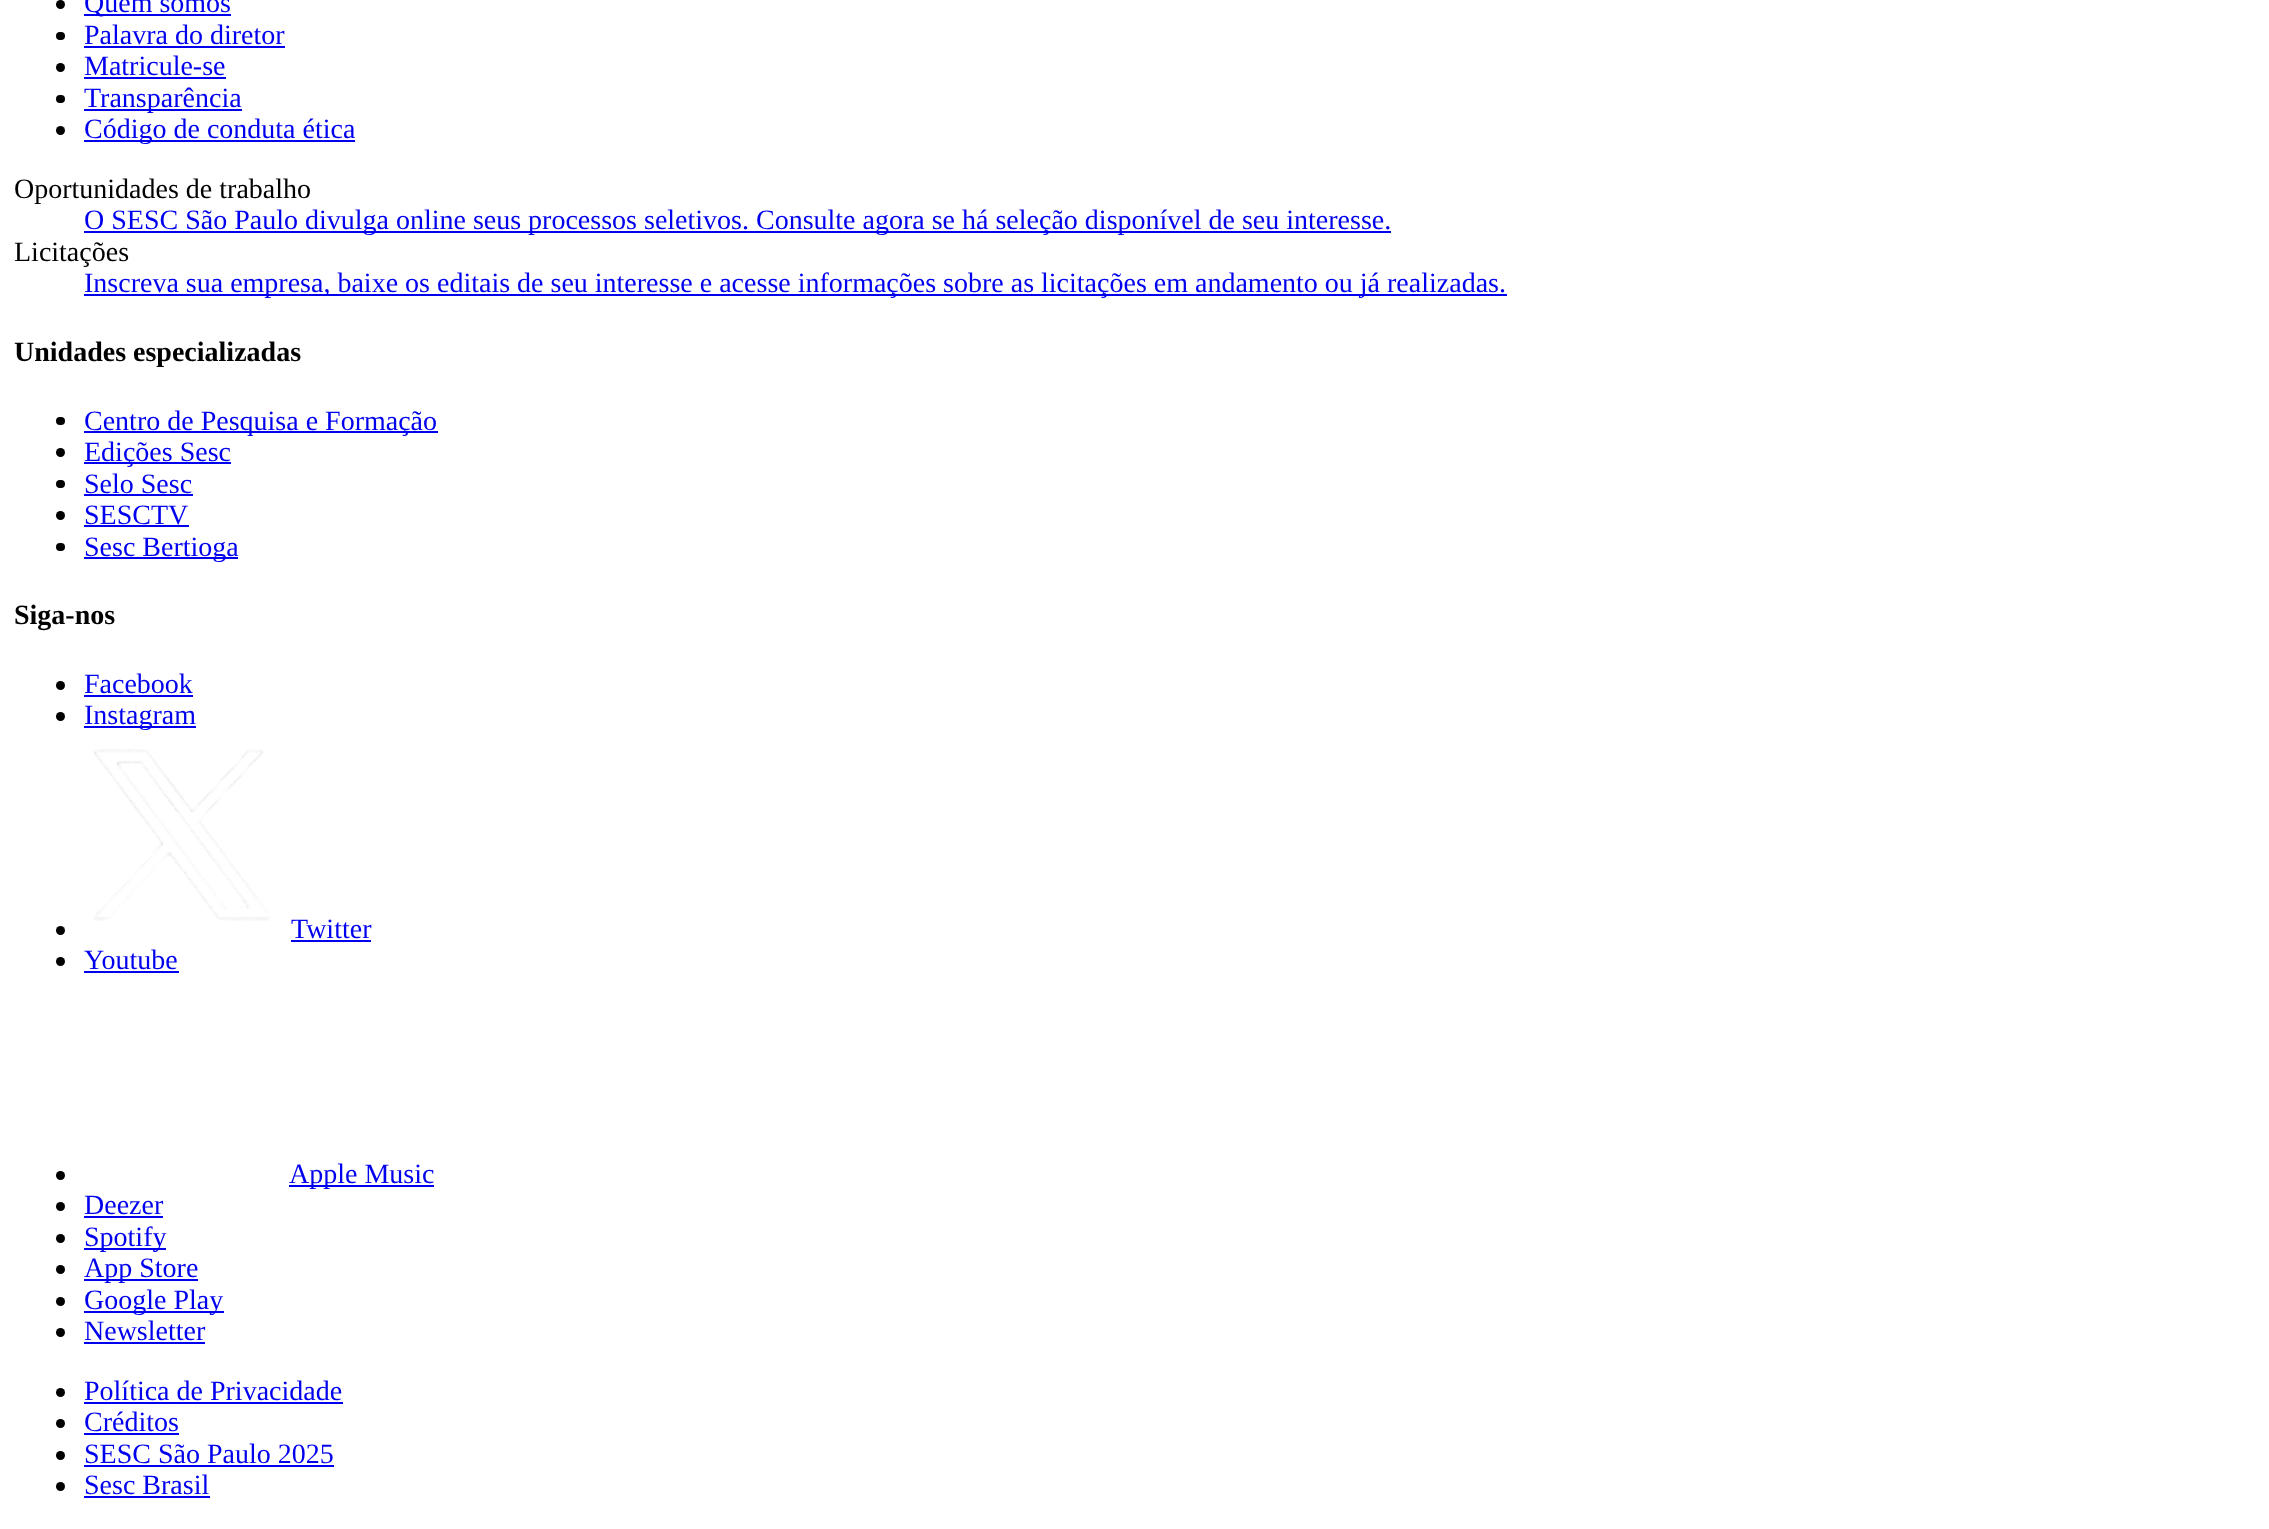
<svg xmlns="http://www.w3.org/2000/svg" width="2269" height="1529">
<style>
.a{font:28px Liberation Serif;fill:#00e}
.b{font:28px Liberation Serif;fill:#000}
.c{font:bold 28px Liberation Serif;fill:#000}
</style>
<rect width="100%" height="100%" fill="#fff"/>
<circle fill="#000" cx="60.5" cy="4.5" r="4.5"/>
<path fill="#00e" d="M84 14h147v2H84z"/>
<rect fill="#000" x="56" y="32" width="9" height="8" rx="4"/>
<path fill="#00e" d="M84 46h201v2H84z"/>
<circle fill="#000" cx="60.5" cy="67.5" r="4.5"/>
<path fill="#00e" d="M84 77h142v2H84z"/>
<rect fill="#000" x="56" y="95" width="9" height="8" rx="4"/>
<path fill="#00e" d="M84 109h158v2H84z"/>
<circle fill="#000" cx="60.5" cy="130.5" r="4.5"/>
<path fill="#00e" d="M84 140h271v2H84z"/>
<path fill="#00e" d="M84 231h1307v2H84z"/>
<path fill="#00e" d="M84 294h1423v2H84z"/>
<rect fill="#000" x="56" y="417" width="9" height="8" rx="4"/>
<path fill="#00e" d="M84 431h354v2H84z"/>
<circle fill="#000" cx="60.5" cy="452.5" r="4.5"/>
<path fill="#00e" d="M84 462h147v2H84z"/>
<rect fill="#000" x="56" y="480" width="9" height="8" rx="4"/>
<path fill="#00e" d="M84 494h109v2H84z"/>
<circle fill="#000" cx="60.5" cy="515.5" r="4.5"/>
<path fill="#00e" d="M84 525h105v2H84z"/>
<rect fill="#000" x="56" y="543" width="9" height="8" rx="4"/>
<path fill="#00e" d="M84 557h154v2H84z"/>
<circle fill="#000" cx="60.5" cy="685.5" r="4.5"/>
<path fill="#00e" d="M84 695h109v2H84z"/>
<circle fill="#000" cx="60.5" cy="716.5" r="4.5"/>
<path fill="#00e" d="M84 726h112v2H84z"/>
<image href="1.png" x="93" y="749" width="178" height="172"/>
<circle fill="#000" cx="60.5" cy="930.5" r="4.5"/>
<path fill="#00e" d="M291 940h80v2H291z"/>
<circle fill="#000" cx="60.5" cy="961.5" r="4.5"/>
<path fill="#00e" d="M84 971h95v2H84z"/>
<circle fill="#000" cx="60.5" cy="1175.5" r="4.5"/>
<path fill="#00e" d="M289 1185h145v2H289z"/>
<circle fill="#000" cx="60.5" cy="1206.5" r="4.5"/>
<path fill="#00e" d="M84 1216h79v2H84z"/>
<circle fill="#000" cx="60.5" cy="1238.5" r="4.5"/>
<path fill="#00e" d="M84 1248h82v2H84z"/>
<circle fill="#000" cx="60.5" cy="1269.5" r="4.5"/>
<path fill="#00e" d="M84 1279h114v2H84z"/>
<circle fill="#000" cx="60.5" cy="1301.5" r="4.5"/>
<path fill="#00e" d="M84 1311h140v2H84z"/>
<circle fill="#000" cx="60.5" cy="1332.5" r="4.5"/>
<path fill="#00e" d="M84 1342h121v2H84z"/>
<circle fill="#000" cx="60.5" cy="1392.5" r="4.5"/>
<path fill="#00e" d="M84 1402h259v2H84z"/>
<circle fill="#000" cx="60.5" cy="1423.5" r="4.5"/>
<path fill="#00e" d="M84 1433h95v2H84z"/>
<circle fill="#000" cx="60.5" cy="1455.5" r="4.5"/>
<path fill="#00e" d="M84 1465h250v2H84z"/>
<circle fill="#000" cx="60.5" cy="1486.5" r="4.5"/>
<path fill="#00e" d="M84 1496h126v2H84z"/>
<text class="a" x="84" y="12">Quem somos</text>
<text class="a" x="84" y="44">Palavra do diretor</text>
<text class="a" x="84" y="75">Matricule-se</text>
<text class="a" x="84" y="107">Transparência</text>
<text class="a" x="84" y="138">Código de conduta ética</text>
<text class="b" x="14" y="198">Oportunidades de trabalho</text>
<text class="a" x="84" y="229">O SESC São Paulo divulga online seus processos seletivos. Consulte agora se há seleção disponível de seu interesse.</text>
<text class="b" x="14" y="261">Licitações</text>
<text class="a" x="84" y="292">Inscreva sua empresa, baixe os editais de seu interesse e acesse informações sobre as licitações em andamento ou já realizadas.</text>
<text class="c" x="14" y="361">Unidades especializadas</text>
<text class="a" x="84" y="430">Centro de Pesquisa e Formação</text>
<text class="a" x="84" y="461">Edições Sesc</text>
<text class="a" x="84" y="493">Selo Sesc</text>
<text class="a" x="84" y="524">SESCTV</text>
<text class="a" x="84" y="556">Sesc Bertioga</text>
<text class="c" x="14" y="624">Siga-nos</text>
<text class="a" x="84" y="693">Facebook</text>
<text class="a" x="84" y="724">Instagram</text>
<text class="a" x="291" y="938">Twitter</text>
<text class="a" x="84" y="969">Youtube</text>
<text class="a" x="289" y="1183">Apple Music</text>
<text class="a" x="84" y="1214">Deezer</text>
<text class="a" x="84" y="1246">Spotify</text>
<text class="a" x="84" y="1277">App Store</text>
<text class="a" x="84" y="1309">Google Play</text>
<text class="a" x="84" y="1340">Newsletter</text>
<text class="a" x="84" y="1400">Política de Privacidade</text>
<text class="a" x="84" y="1431">Créditos</text>
<text class="a" x="84" y="1463">SESC São Paulo 2025</text>
<text class="a" x="84" y="1494">Sesc Brasil</text>
</svg>
